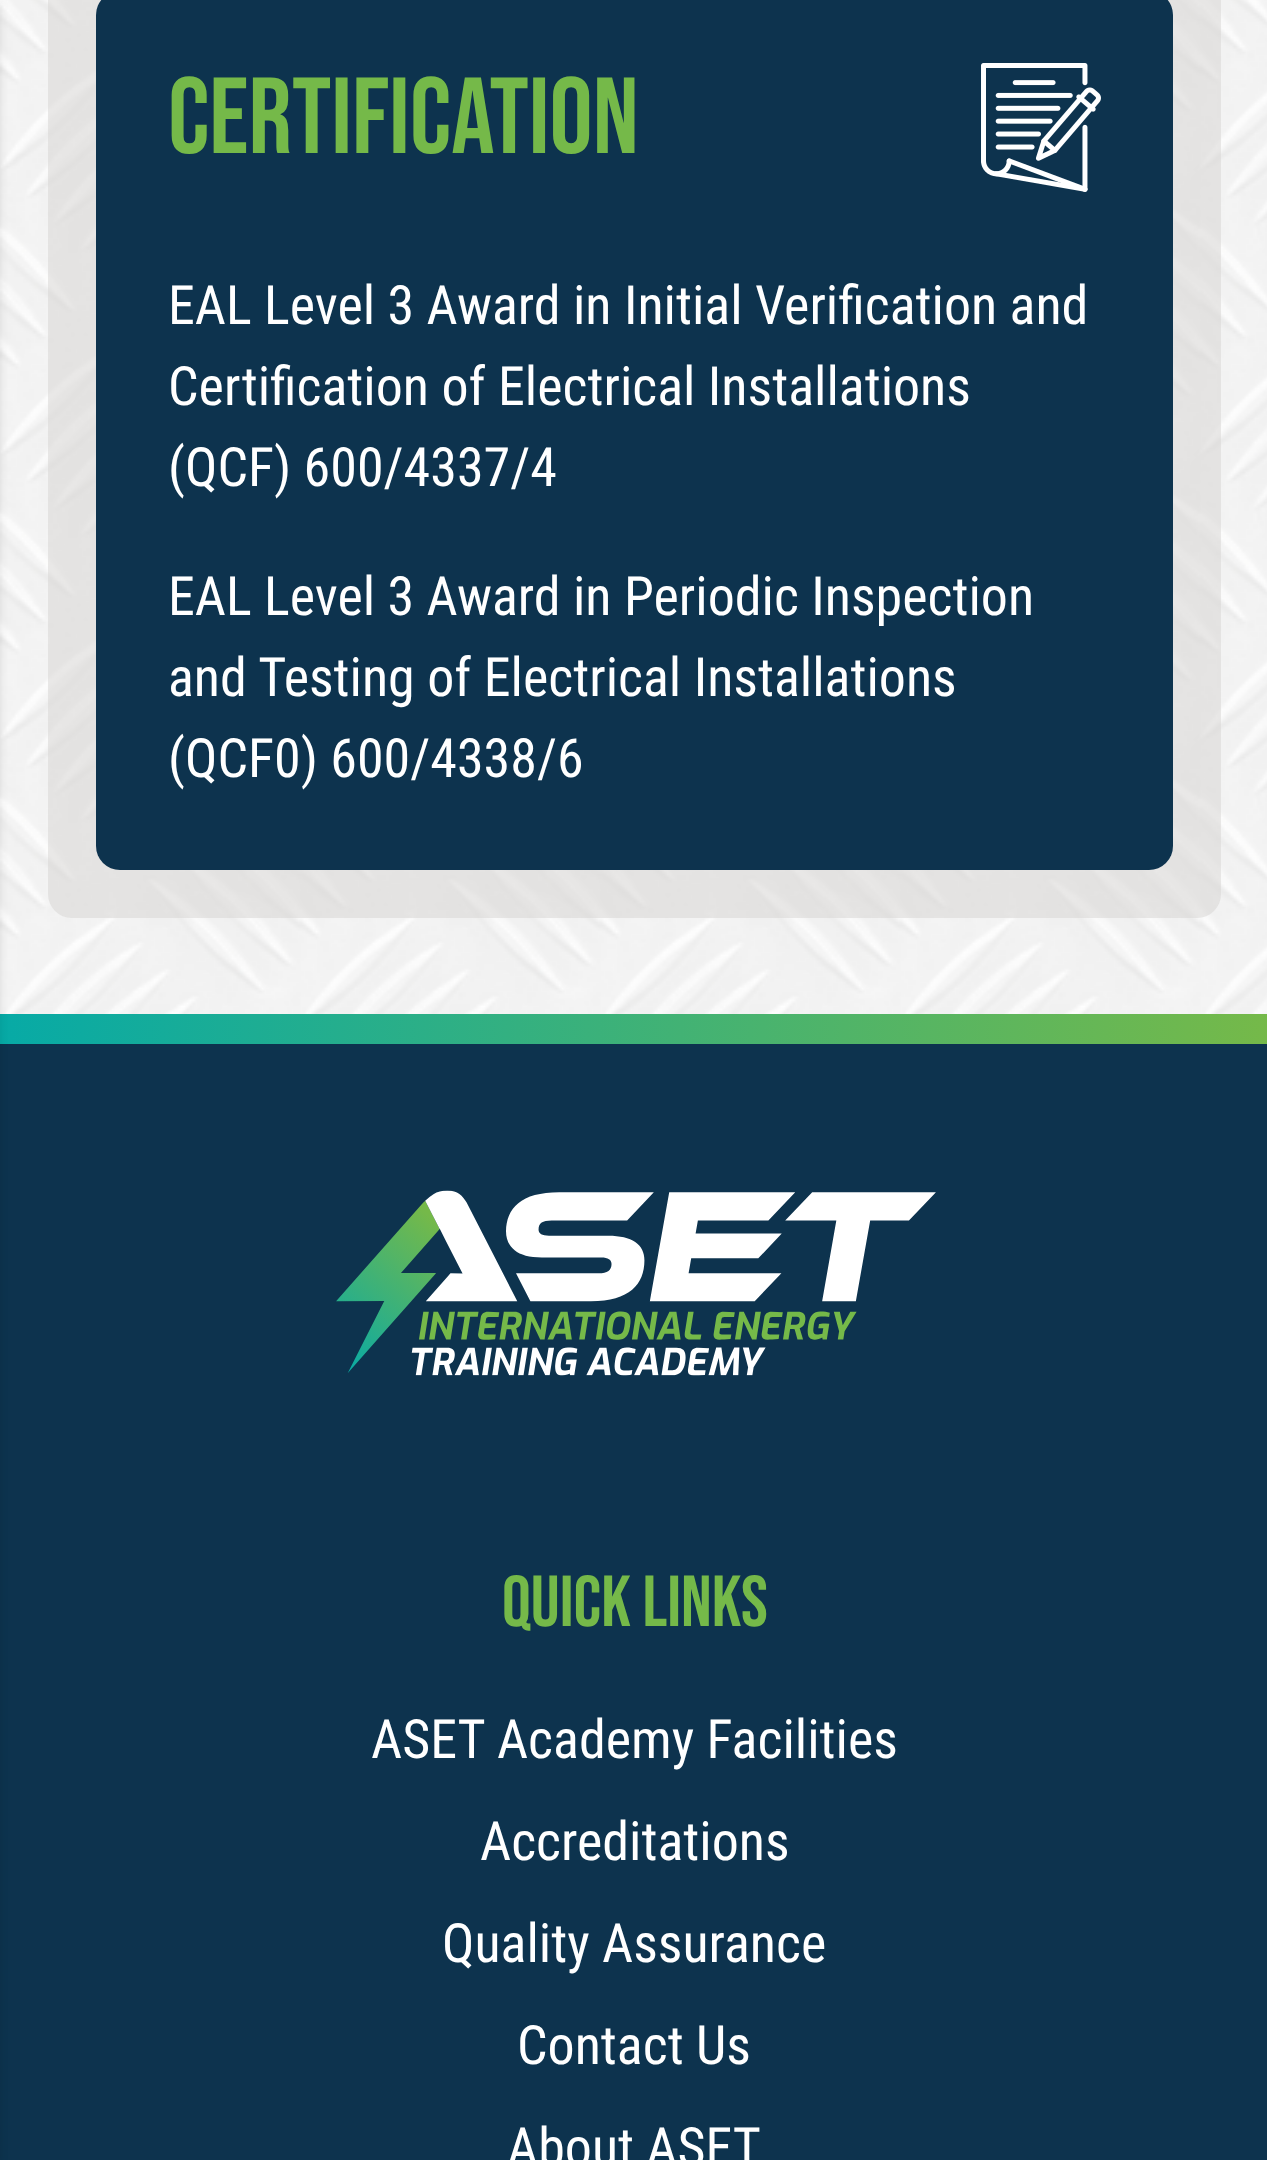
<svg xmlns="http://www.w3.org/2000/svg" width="1267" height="2160">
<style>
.a{font:108px Bebas Neue;fill:#75b949}
.b{font:54px Roboto Condensed;fill:#fff}
.c{font:72px Bebas Neue;fill:#75b949}
</style>
<defs>
<linearGradient id="g1" gradientUnits="userSpaceOnUse" x1="0" y1="1029" x2="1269" y2="1029"><stop offset="0" stop-color="#07aaa6"/><stop offset="1" stop-color="#75b949"/></linearGradient>
</defs>
<rect width="100%" height="100%" fill="#fff"/>
<image href="1.png" x="0" y="0" width="1267" height="1014"/>
<path fill="url(#g1)" d="M0 1014h1267v30H0z"/>
<path fill="#0d334e" d="M0 1044h1267v1116H0z"/>
<path fill="#0000001a" filter="blur(4.5px)" d="M-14 3h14v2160H-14z"/>
<rect fill="#d6d3d180" x="48" y="-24" width="1173" height="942" rx="24"/>
<rect fill="#0d334e" x="96" y="-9" width="1077" height="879" rx="24"/>
<image href="2.png" x="981" y="63" width="120" height="129"/>
<image href="3.png" x="336" y="1190" width="600" height="186"/>
<text class="a" x="168" y="153">CERTIFICATION</text>
<text class="b" x="168" y="324">EAL Level 3 Award in Initial Verification and</text>
<text class="b" x="168" y="405">Certification of Electrical Installations</text>
<text class="b" x="168" y="486">(QCF) 600/4337/4</text>
<text class="b" x="168" y="615">EAL Level 3 Award in Periodic Inspection</text>
<text class="b" x="168" y="696">and Testing of Electrical Installations</text>
<text class="b" x="168" y="777">(QCF0) 600/4338/6</text>
<text class="c" x="502" y="1626">QUICK LINKS</text>
<text class="b" x="371" y="1758">ASET Academy Facilities</text>
<text class="b" x="480" y="1860">Accreditations</text>
<text class="b" x="442" y="1962">Quality Assurance</text>
<text class="b" x="517" y="2064">Contact Us</text>
<text class="b" x="507" y="2166">About ASET</text>
</svg>
